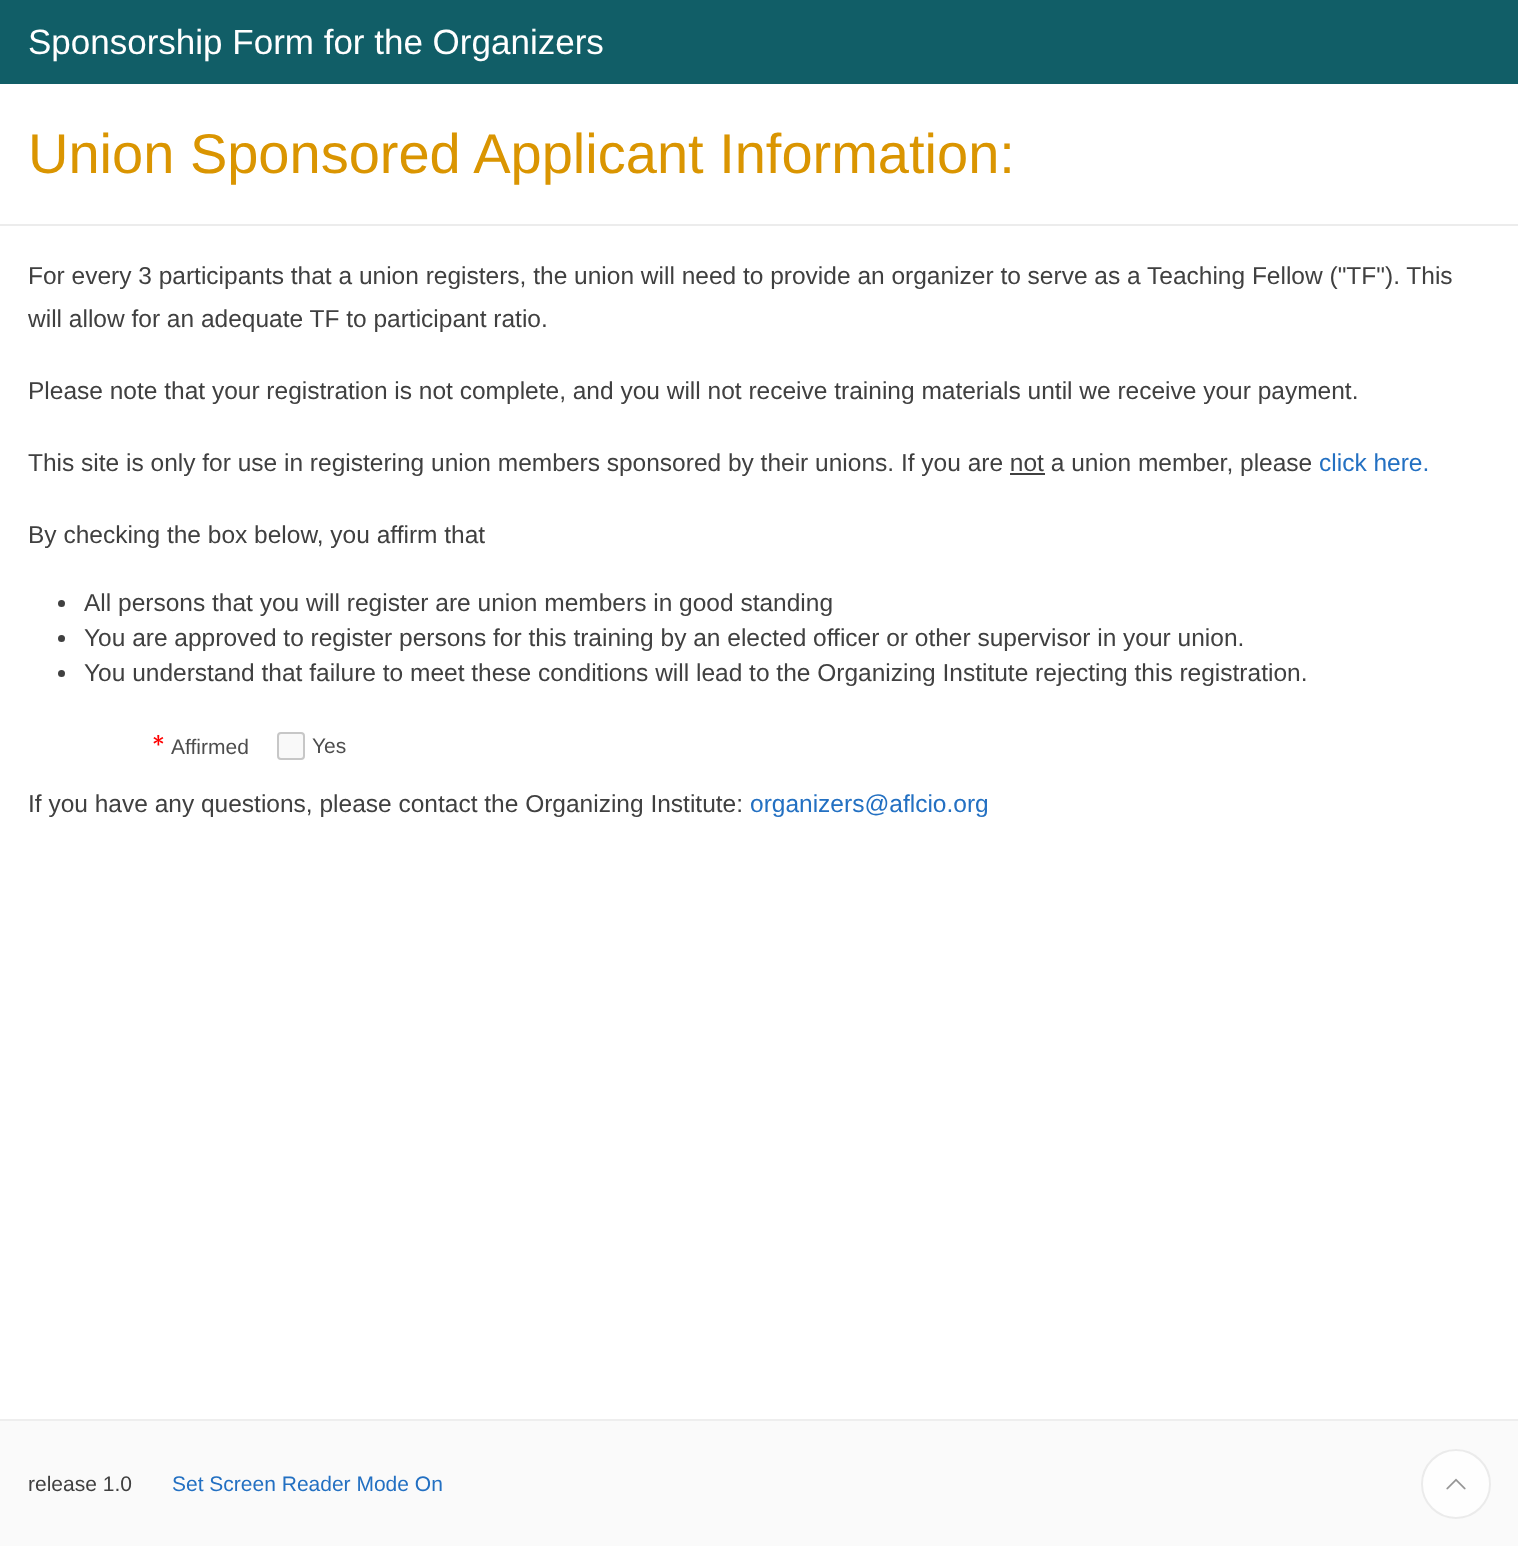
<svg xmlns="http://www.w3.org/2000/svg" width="1518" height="1546">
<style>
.a{font:35px Liberation Sans;fill:#fff}
.b{font:56px Liberation Sans;fill:#da9501}
.c{font:24.5px Liberation Sans;fill:#404040}
.d{font:24.5px Liberation Sans;fill:#2370c2}
.e{font:21px Liberation Sans;fill:#4d4d4d}
.f{font:21px Liberation Sans;fill:#404040}
.g{font:21px Liberation Sans;fill:#2370c2}
</style>
<rect width="100%" height="100%" fill="#fff"/>
<path fill="#115e67" d="M0 0h1518v84H0z"/>
<path fill="#ececec" d="M0 224h1518v2H0z"/>
<path fill="#404040" d="M1010 473h35v2H1010z"/>
<circle fill="#404040" cx="61.5" cy="603.5" r="3.5"/>
<circle fill="#404040" cx="61.5" cy="638.5" r="3.5"/>
<circle fill="#404040" cx="61.5" cy="673.5" r="3.5"/>
<image href="1.png" x="153" y="735" width="11" height="11"/>
<rect fill="#f9f9f9" stroke="#c7c7c7" stroke-width="2" x="278" y="733" width="26" height="26" rx="3"/>
<path fill="#fafafa" d="M0 1421h1518v125H0z"/>
<path fill="#eee" d="M0 1419h1518v2H0z"/>
<circle fill="#fefefe" stroke="#ebebeb" stroke-width="2" cx="1456" cy="1484" r="34"/>
<image href="2.png" x="1446" y="1478" width="20" height="12"/>
<text class="a" x="28" y="54">Sponsorship Form for the Organizers</text>
<text class="b" x="28" y="173">Union Sponsored Applicant Information:</text>
<text class="c" x="28" y="284">For every 3 participants that a union registers, the union will need to provide an organizer to serve as a Teaching Fellow ("TF"). This</text>
<text class="c" x="28" y="327">will allow for an adequate TF to participant ratio.</text>
<text class="c" x="28" y="399">Please note that your registration is not complete, and you will not receive training materials until we receive your payment.</text>
<text class="c" x="28" y="471">This site is only for use in registering union members sponsored by their unions. If you are not a union member, please</text>
<text class="d" x="1319" y="471">click here.</text>
<text class="c" x="28" y="543">By checking the box below, you affirm that</text>
<text class="c" x="84" y="611">All persons that you will register are union members in good standing</text>
<text class="c" x="84" y="646">You are approved to register persons for this training by an elected officer or other supervisor in your union.</text>
<text class="c" x="84" y="681">You understand that failure to meet these conditions will lead to the Organizing Institute rejecting this registration.</text>
<text class="e" x="171" y="754">Affirmed</text>
<text class="e" x="312" y="753">Yes</text>
<text class="c" x="28" y="812">If you have any questions, please contact the Organizing Institute:</text>
<text class="d" x="750" y="812">organizers@aflcio.org</text>
<text class="f" x="28" y="1491">release 1.0</text>
<text class="g" x="172" y="1491">Set Screen Reader Mode On</text>
</svg>
